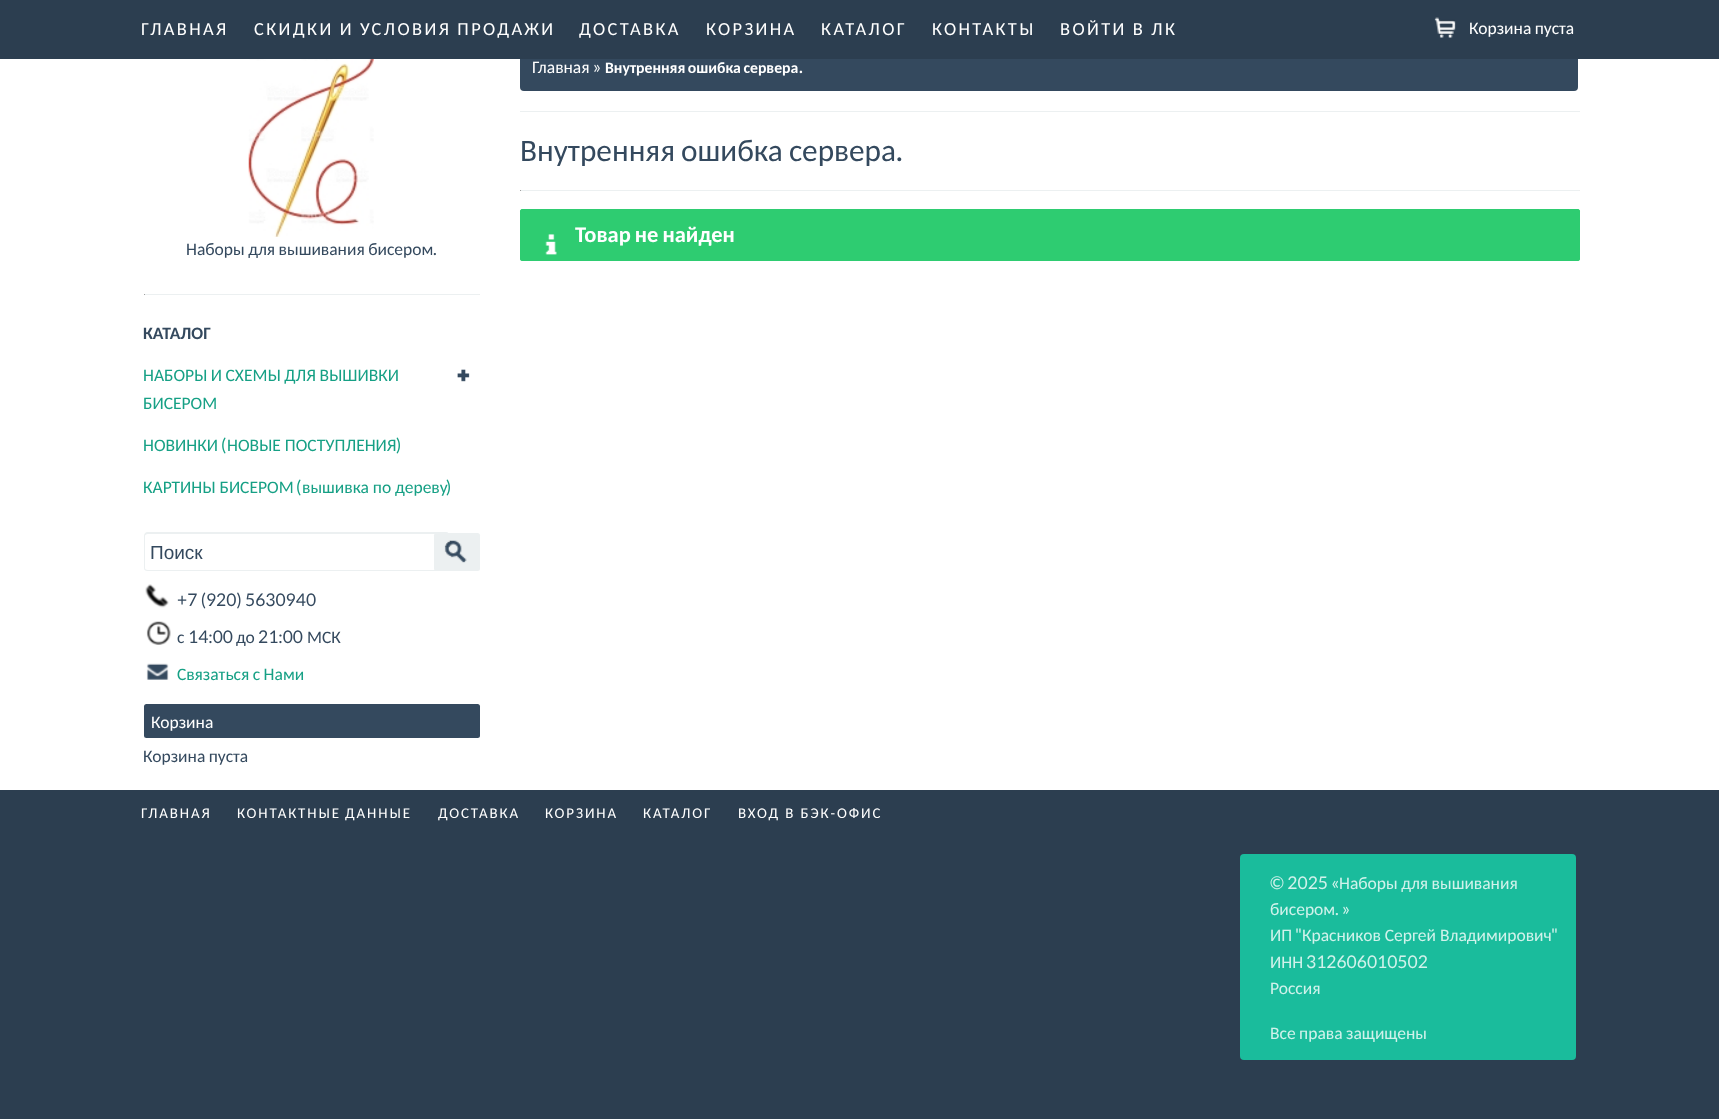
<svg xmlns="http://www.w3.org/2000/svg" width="1719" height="1119">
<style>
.a{font:18.4px Carlito;letter-spacing:2.4px;fill:#fff}
.b{font:17.5px Carlito;fill:#fff}
.c{font:17.5px Lato;fill:#ecf0f1}
.d{font:bold 15.75px Carlito;fill:#fff}
.e{font:bold 15.75px Lato;fill:#fff}
.f{font:31.25px Carlito;fill:#34495e}
.g{font:31.25px Lato;fill:#34495e}
.h{font:bold 22.5px Carlito;fill:#fff}
.i{font:17.5px Carlito;fill:#34495e}
.j{font:17.5px Lato;fill:#34495e}
.k{font:bold 17.5px Carlito;fill:#34495e}
.l{font:17.5px Carlito;fill:#16a085}
.m{font:17.5px Lato;fill:#16a085}
.n{font:19px Liberation Sans;fill:#34495e}
.o{font:14.9px Carlito;letter-spacing:1.9px;fill:#fff}
.p{font:17.5px Lato;fill:#d1f2eb}
.q{font:17.5px Carlito;fill:#d1f2eb}
</style>
<rect width="100%" height="100%" fill="#2c3e50"/>
<path fill="#fff" d="M0 59h1719v731H0z"/>
<rect fill="#34495e" x="520" y="43" width="1058" height="48" rx="4"/>
<path fill="#2c3e50" d="M520 43h1058v16H520z"/>
<image href="1.png" x="1434" y="17" width="22" height="21"/>
<path fill="#ecf0f1" d="M520 111h1060v1H520z"/>
<path fill="#ecf0f1" d="M520 190h1060v1H520z"/>
<path fill="#eee" d="M1579 190h1v1H1579z"/>
<path fill="#9f9f9f" d="M520 190h1v1H520z"/>
<rect fill="#2ecc71" x="520" y="209" width="1060" height="52" rx="2.5"/>
<image href="2.png" x="545" y="234" width="12" height="21"/>
<rect fill="none" stroke="#2ecc71" x="520.5" y="209.5" width="1059" height="51" rx="2"/>
<image href="3.png" x="248" y="59" width="126" height="178"/>
<path fill="#ecf0f1" d="M144 294h336v1H144z"/>
<path fill="#eee" d="M479 294h1v1H479z"/>
<path fill="#9f9f9f" d="M144 294h1v1H144z"/>
<image href="4.png" x="457" y="369" width="13" height="13"/>
<path fill="#ecf0f1" fill-rule="evenodd" d="M148 532h298c2 0 4 2 4 4v32c0 2-2 3-4 3h-298c-3 0-4-1-4-3v-32c0-2 1-4 4-4zm0 2h298c2 0 4 1 4 2v32c0 1-2 2-4 2h-298c-2 0-3-1-3-2v-32c0-1 1-2 3-2z"/>
<rect fill="#ecf0f1" x="434" y="533" width="46" height="38" rx="2.5"/>
<image href="5.png" x="444" y="540" width="23" height="23"/>
<image href="6.png" x="145" y="584" width="24" height="24"/>
<image href="7.png" x="146" y="621" width="25" height="24"/>
<image href="8.png" x="146" y="663" width="23" height="17"/>
<rect fill="#34495e" x="144" y="704" width="336" height="34" rx="2.5"/>
<rect fill="#1abc9c" x="1240" y="854" width="336" height="206" rx="4"/>
<text class="a" x="141" y="35">ГЛАВНАЯ</text>
<text class="a" x="254" y="35" word-spacing="-0.5">СКИДКИ И УСЛОВИЯ ПРОДАЖИ</text>
<text class="a" x="579" y="35">ДОСТАВКА</text>
<text class="a" x="706" y="35">КОРЗИНА</text>
<text class="a" x="821" y="35">КАТАЛОГ</text>
<text class="a" x="932" y="35">КОНТАКТЫ</text>
<text class="a" x="1060" y="35" word-spacing="-0.5">ВОЙТИ В ЛК</text>
<text class="b" x="1469" y="34" word-spacing="-0.5">Корзина пуста</text>
<text class="b" x="532" y="73">Главная</text>
<text class="c" x="593" y="73">»</text>
<text class="d" x="605" y="73" word-spacing="-1">Внутренняя ошибка сервера</text>
<text class="e" x="799" y="73">.</text>
<text class="f" x="520" y="161" word-spacing="-1">Внутренняя ошибка сервера</text>
<text class="g" x="896" y="161">.</text>
<text class="h" x="575" y="242" word-spacing="-1">Товар не найден</text>
<text class="i" x="186" y="255" word-spacing="-0.5">Наборы для вышивания бисером</text>
<text class="j" x="433" y="255">.</text>
<text class="k" x="143" y="339">КАТАЛОГ</text>
<text class="l" x="143" y="381" word-spacing="-0.5">НАБОРЫ И СХЕМЫ ДЛЯ ВЫШИВКИ</text>
<text class="l" x="143" y="409">БИСЕРОМ</text>
<text class="l" x="143" y="451">НОВИНКИ</text>
<text class="m" x="221" y="451">(</text>
<text class="l" x="227" y="451">НОВЫЕ ПОСТУПЛЕНИЯ</text>
<text class="m" x="396" y="451">)</text>
<text class="l" x="143" y="493">КАРТИНЫ БИСЕРОМ</text>
<text class="m" x="296" y="493">(</text>
<text class="l" x="302" y="493">вышивка по дереву</text>
<text class="m" x="446" y="493">)</text>
<text class="n" x="150" y="559">Поиск</text>
<text class="j" x="177" y="606">+7 (920) 5630940</text>
<text class="i" x="177" y="643">с</text>
<text class="j" x="188" y="643">14:00</text>
<text class="i" x="236" y="643">до</text>
<text class="j" x="258" y="643">21:00</text>
<text class="i" x="307" y="643">МСК</text>
<text class="l" x="177" y="680" word-spacing="-0.5">Связаться с Нами</text>
<text class="b" x="151" y="728">Корзина</text>
<text class="i" x="143" y="762" word-spacing="-0.5">Корзина пуста</text>
<text class="o" x="141" y="818">ГЛАВНАЯ</text>
<text class="o" x="237" y="818" word-spacing="-1">КОНТАКТНЫЕ ДАННЫЕ</text>
<text class="o" x="438" y="818">ДОСТАВКА</text>
<text class="o" x="545" y="818">КОРЗИНА</text>
<text class="o" x="643" y="818">КАТАЛОГ</text>
<text class="o" x="738" y="818">ВХОД В БЭК-ОФИС</text>
<text class="p" x="1270" y="889">© 2025 «</text>
<text class="q" x="1339" y="889" word-spacing="-0.5">Наборы для вышивания</text>
<text class="q" x="1270" y="915">бисером</text>
<text class="p" x="1335" y="915">. »</text>
<text class="q" x="1270" y="941">ИП</text>
<text class="p" x="1295" y="941">"</text>
<text class="q" x="1302" y="941">Красников Сергей Владимирович</text>
<text class="p" x="1551" y="941">"</text>
<text class="q" x="1270" y="968">ИНН</text>
<text class="p" x="1306" y="968">312606010502</text>
<text class="q" x="1270" y="994">Россия</text>
<text class="q" x="1270" y="1039" word-spacing="-0.5">Все права защищены</text>
</svg>
